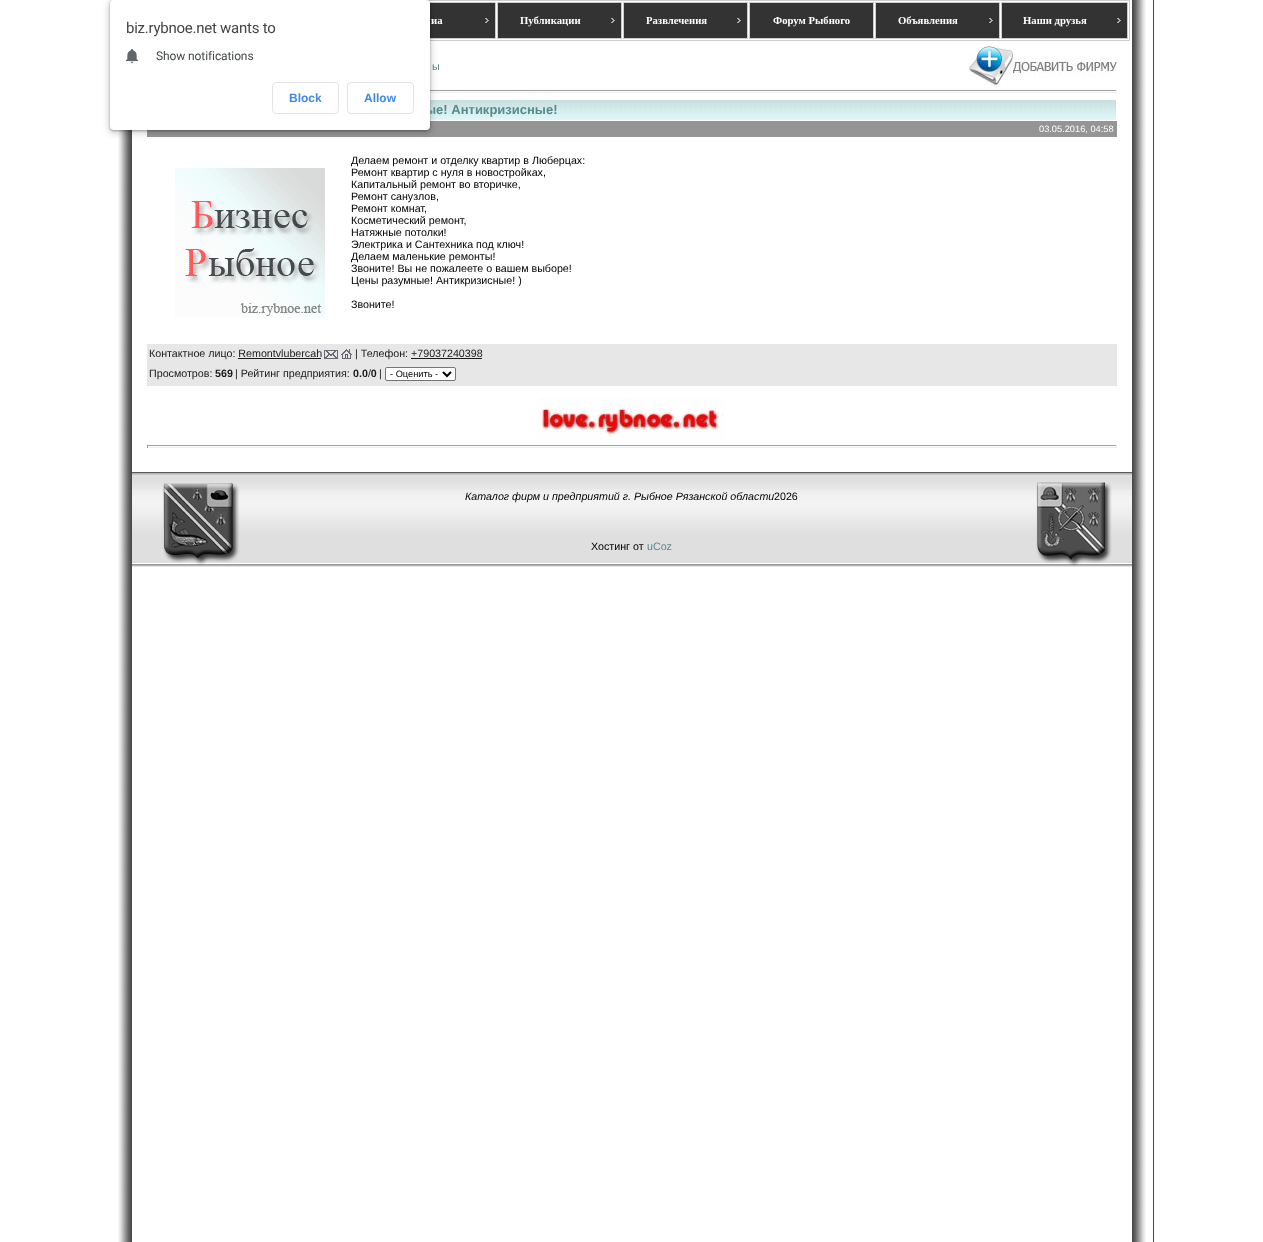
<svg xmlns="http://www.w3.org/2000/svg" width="1263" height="1242">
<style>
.a{font:bold 10.7px Liberation Serif;fill:#fff}
.b{font:10.7px Liberation Sans;fill:#578a8d}
.c{font:bold 13px Liberation Sans;fill:#578a8d}
.d{font:9.25px Liberation Sans;fill:#fff}
.e{font:10.7px Liberation Sans;fill:#000}
.f{font:10.7px Liberation Sans;fill:#1a1a1a}
.g{font:bold 10.7px Liberation Sans;fill:#1a1a1a}
.h{font:9.25px Liberation Sans;fill:#000}
.i{font:italic 10.7px Liberation Sans;fill:#000}
.j{font:15px Roboto;letter-spacing:-0.25px;fill:#434749}
.k{font:12px Roboto;letter-spacing:-0.1px;fill:#434749}
.l{font:bold 12px Liberation Sans;fill:#4089e8}
</style>
<rect width="100%" height="100%" fill="#fff"/>
<image href="1.png" x="118" y="130" width="14" height="1112"/>
<path fill="none" stroke="#ccc" d="M132.5 0.5h997v40H132.5z"/>
<path fill="#333" d="M429 3h66v35H429z"/>
<path fill="none" stroke="#ccc" d="M376.5 2.5h119v36H376.5z"/>
<image href="2.png" x="485" y="18" width="4" height="5"/>
<path fill="#333" stroke="#ccc" d="M497.5 2.5h124v36H497.5z"/>
<image href="2.png" x="611" y="18" width="4" height="5"/>
<path fill="#333" stroke="#ccc" d="M623.5 2.5h124v36H623.5z"/>
<image href="2.png" x="737" y="18" width="4" height="5"/>
<path fill="#333" stroke="#ccc" d="M749.5 2.5h124v36H749.5z"/>
<path fill="#333" stroke="#ccc" d="M875.5 2.5h124v36H875.5z"/>
<image href="2.png" x="989" y="18" width="4" height="5"/>
<path fill="#333" stroke="#ccc" d="M1001.5 2.5h126v36H1001.5z"/>
<image href="2.png" x="1117" y="18" width="4" height="5"/>
<image href="3.png" x="969" y="46" width="148" height="39"/>
<path fill="#9f9f9f" d="M430 90h687v1H430z"/>
<path fill="#eee" d="M1116 90h1v3H1116z"/>
<path fill="#eee" d="M430 92h687v1H430z"/>
<image href="4.png" x="430" y="100" width="686" height="20"/>
<path fill="#959595" d="M147 121h970v16H147z"/>
<image href="5.png" x="175" y="168" width="150" height="150"/>
<path fill="#e7e7e7" d="M147 344h970v42H147z"/>
<image href="6.png" x="324" y="350" width="14" height="9"/>
<image href="7.png" x="341" y="349" width="11" height="10"/>
<path fill="#1a1a1a" d="M238 358h83v1H238z"/>
<path fill="#1a1a1a" d="M411 358h71v1H411z"/>
<rect fill="#fff" stroke="#767676" x="385.5" y="367.5" width="70" height="13" rx="1.5"/>
<path fill="none" stroke="#000" stroke-width="2" d="M443 372l4 4l4-4"/>
<image href="8.png" x="535" y="398" width="190" height="42"/>
<path fill="#9f9f9f" d="M147 445h970v1H147z"/>
<path fill="#eee" d="M1116 445h1v3H1116z"/>
<path fill="#eee" d="M147 447h970v1H147z"/>
<path fill="#9f9f9f" d="M147 445h1v3H147z"/>
<image href="9.png" x="132" y="472" width="1000" height="95"/>
<image href="10.png" x="1132" y="0" width="22" height="1242"/>
<rect fill="#00000026" filter="blur(3px)" x="108" width="324" height="134" rx="6"/>
<rect fill="#0000004d" filter="blur(1px)" x="110" y="1" width="320" height="130" rx="4"/>
<text class="a" x="431" y="24">иа</text>
<text class="a" x="520" y="24">Публикации</text>
<text class="a" x="646" y="24">Развлечения</text>
<text class="a" x="773" y="24">Форум Рыбного</text>
<text class="a" x="898" y="24">Объявления</text>
<text class="a" x="1023" y="24">Наши друзья</text>
<text class="b" x="432" y="70">ы</text>
<text class="c" x="425" y="114">ые! Антикризисные!</text>
<text class="d" x="1039" y="132">03.05.2016, 04:58</text>
<text class="e" x="351" y="164">Делаем ремонт и отделку квартир в Люберцах:</text>
<text class="e" x="351" y="176">Ремонт квартир с нуля в новостройках,</text>
<text class="e" x="351" y="188">Капитальный ремонт во вторичке,</text>
<text class="e" x="351" y="200">Ремонт санузлов,</text>
<text class="e" x="351" y="212">Ремонт комнат,</text>
<text class="e" x="351" y="224">Косметический ремонт,</text>
<text class="e" x="351" y="236">Натяжные потолки!</text>
<text class="e" x="351" y="248">Электрика и Сантехника под ключ!</text>
<text class="e" x="351" y="260">Делаем маленькие ремонты!</text>
<text class="e" x="351" y="272">Звоните! Вы не пожалеете о вашем выборе!</text>
<text class="e" x="351" y="284">Цены разумные! Антикризисные! )</text>
<text class="e" x="351" y="308">Звоните!</text>
<text class="f" x="149" y="357">Контактное лицо: Remontvlubercah</text>
<text class="f" x="355" y="357">| Телефон: +79037240398</text>
<text class="f" x="149" y="377">Просмотров:</text>
<text class="g" x="215" y="377">569</text>
<text class="f" x="235" y="377">| Рейтинг предприятия:</text>
<text class="g" x="353" y="377">0.0 0</text>
<text class="f" x="368" y="377">/</text>
<text class="f" x="379" y="377">|</text>
<text class="h" x="390" y="377">- Оценить -</text>
<text class="i" x="465" y="500">Каталог фирм и предприятий г. Рыбное Рязанской области</text>
<text class="e" x="774" y="500">2026</text>
<text class="e" x="591" y="550">Хостинг от</text>
<text class="b" x="647" y="550">uCoz</text>
<rect fill="#fff" x="110" width="320" height="130" rx="4"/>
<text class="j" x="126" y="33">biz.rybnoe.net wants to</text>
<image href="11.png" x="126" y="49" width="12" height="14"/>
<text class="k" x="156" y="60">Show notifications</text>
<rect fill="none" stroke="#e4e4e4" x="272.5" y="82.5" width="66" height="31" rx="3.5"/>
<text class="l" x="289" y="102">Block</text>
<rect fill="none" stroke="#e4e4e4" x="347.5" y="82.5" width="66" height="31" rx="3.5"/>
<text class="l" x="364" y="102">Allow</text>
</svg>
